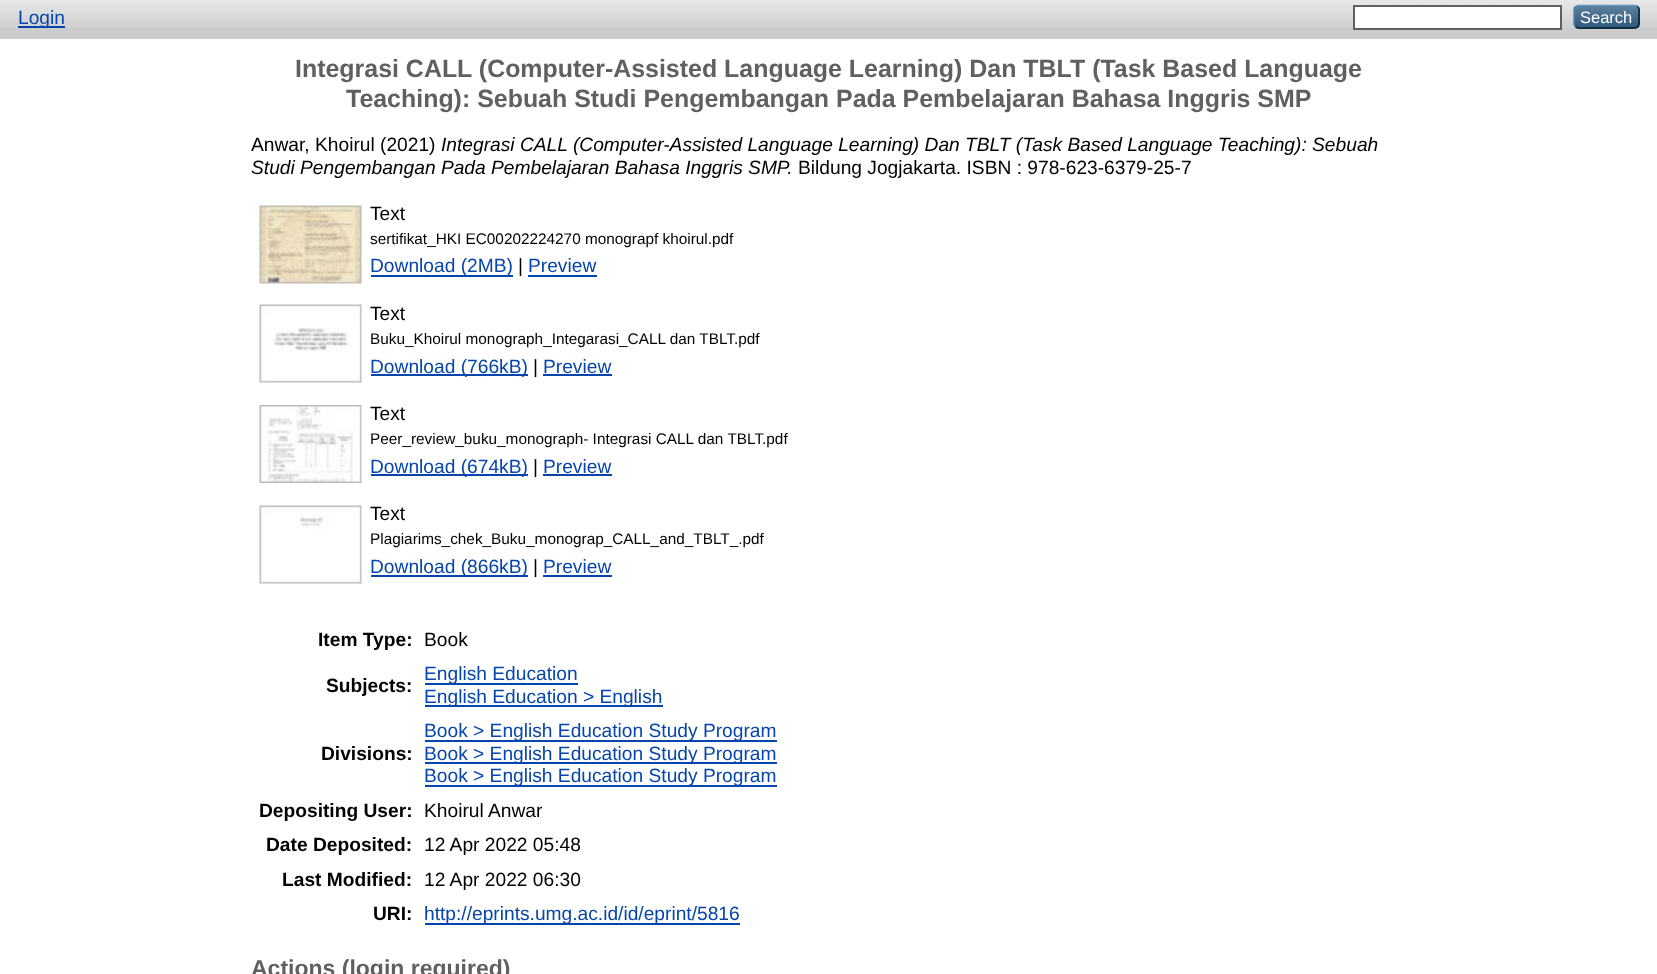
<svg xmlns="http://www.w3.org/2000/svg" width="1657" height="974">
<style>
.a{font:19.2px Liberation Sans;fill:#0645ad}
.b{font:16.5px Liberation Sans;fill:#fff}
.c{font:bold 24.95px Liberation Sans;fill:#606060}
.d{font:19.2px Liberation Sans;fill:#000}
.e{font:italic 19.2px Liberation Sans;fill:#000}
.f{font:15.35px Liberation Sans;fill:#000}
.g{font:bold 19.2px Liberation Sans;fill:#000}
.h{font:bold 23px Liberation Sans;fill:#606060}
</style>
<rect width="100%" height="100%" fill="#fff"/>
<path fill="#ccc" d="M0 0h1657v39H0z"/>
<image href="1.png" x="0" y="0" width="1657" height="28"/>
<path fill="#0645ad" d="M18 26h47v2H18z"/>
<path fill="#fff" stroke="#606060" stroke-width="2" d="M1354 6h207v23H1354z"/>
<rect fill="#1f4f76" x="1574" y="5" width="66" height="24" rx="5"/>
<image href="2.png" x="1574" y="5" width="66" height="23"/>
<path fill="none" stroke="#5b97c7" stroke-width="1.5" d="M1575.5 6.5l2-1h58l2 1"/>
<path fill="none" stroke="#0d2131" stroke-width="1.5" d="M1637.5 6.5c2.5 2 1.5 7 1.5 10c0 13 .5 11.5-13.5 11.5h-38c-.5 0-9.5 1.5-12-1.5"/>
<path fill="none" stroke="#5287b3" stroke-width="1.5" d="M1575.5 26.5c-1-.5-1.5-1.5-1.5-2.5v-15c0-1 .5-2 1.5-2.5"/>
<image href="3.png" x="259" y="205" width="103" height="79"/>
<path fill="#0645ad" d="M371 275h142v2H371z"/>
<path fill="#0645ad" d="M528 275h69v2H528z"/>
<image href="4.png" x="259" y="304" width="103" height="79"/>
<path fill="#0645ad" d="M371 374h157v2H371z"/>
<path fill="#0645ad" d="M543 374h69v2H543z"/>
<image href="5.png" x="259" y="405" width="103" height="78"/>
<path fill="#0645ad" d="M371 474h157v2H371z"/>
<path fill="#0645ad" d="M543 474h69v2H543z"/>
<image href="6.png" x="259" y="505" width="103" height="79"/>
<path fill="#0645ad" d="M371 575h157v2H371z"/>
<path fill="#0645ad" d="M543 575h69v2H543z"/>
<path fill="#0645ad" d="M425 683h153v2H425z"/>
<path fill="#0645ad" d="M425 705h238v2H425z"/>
<path fill="#0645ad" d="M425 740h352v2H425z"/>
<path fill="#0645ad" d="M425 762h352v2H425z"/>
<path fill="#0645ad" d="M425 785h352v2H425z"/>
<path fill="#0645ad" d="M425 923h315v2H425z"/>
<text class="a" x="18" y="24">Login</text>
<text class="b" x="1580" y="23">Search</text>
<text class="c" x="295" y="77">Integrasi CALL (Computer-Assisted Language Learning) Dan TBLT (Task Based Language</text>
<text class="c" x="346" y="107">Teaching): Sebuah Studi Pengembangan Pada Pembelajaran Bahasa Inggris SMP</text>
<text class="d" x="251" y="151">Anwar, Khoirul (2021)</text>
<text class="e" x="441" y="151">Integrasi CALL (Computer-Assisted Language Learning) Dan TBLT (Task Based Language Teaching): Sebuah</text>
<text class="e" x="251" y="174">Studi Pengembangan Pada Pembelajaran Bahasa Inggris SMP.</text>
<text class="d" x="798" y="174">Bildung Jogjakarta. ISBN : 978-623-6379-25-7</text>
<text class="d" x="370" y="220">Text</text>
<text class="f" x="370" y="244">sertifikat_HKI EC00202224270 monograpf khoirul.pdf</text>
<text class="a" x="370" y="272">Download (2MB)</text>
<text class="d" x="518" y="272">|</text>
<text class="a" x="528" y="272">Preview</text>
<text class="d" x="370" y="320">Text</text>
<text class="f" x="370" y="344">Buku_Khoirul monograph_Integarasi_CALL dan TBLT.pdf</text>
<text class="a" x="370" y="373">Download (766kB)</text>
<text class="d" x="533" y="373">|</text>
<text class="a" x="543" y="373">Preview</text>
<text class="d" x="370" y="420">Text</text>
<text class="f" x="370" y="444">Peer_review_buku_monograph- Integrasi CALL dan TBLT.pdf</text>
<text class="a" x="370" y="473">Download (674kB)</text>
<text class="d" x="533" y="473">|</text>
<text class="a" x="543" y="473">Preview</text>
<text class="d" x="370" y="520">Text</text>
<text class="f" x="370" y="544">Plagiarims_chek_Buku_monograp_CALL_and_TBLT_.pdf</text>
<text class="a" x="370" y="573">Download (866kB)</text>
<text class="d" x="533" y="573">|</text>
<text class="a" x="543" y="573">Preview</text>
<text class="g" x="318" y="646">Item Type:</text>
<text class="d" x="424" y="646">Book</text>
<text class="g" x="326" y="692">Subjects:</text>
<text class="a" x="424" y="680">English Education</text>
<text class="a" x="424" y="703">English Education &gt; English</text>
<text class="g" x="321" y="760">Divisions:</text>
<text class="a" x="424" y="737">Book &gt; English Education Study Program</text>
<text class="a" x="424" y="760">Book &gt; English Education Study Program</text>
<text class="a" x="424" y="782">Book &gt; English Education Study Program</text>
<text class="g" x="259" y="817">Depositing User:</text>
<text class="d" x="424" y="817">Khoirul Anwar</text>
<text class="g" x="266" y="851">Date Deposited:</text>
<text class="d" x="424" y="851">12 Apr 2022 05:48</text>
<text class="g" x="282" y="886">Last Modified:</text>
<text class="d" x="424" y="886">12 Apr 2022 06:30</text>
<text class="g" x="373" y="920">URI:</text>
<text class="a" x="424" y="920">http://eprints.umg.ac.id/id/eprint/5816</text>
<text class="h" x="251" y="976">Actions (login required)</text>
</svg>
